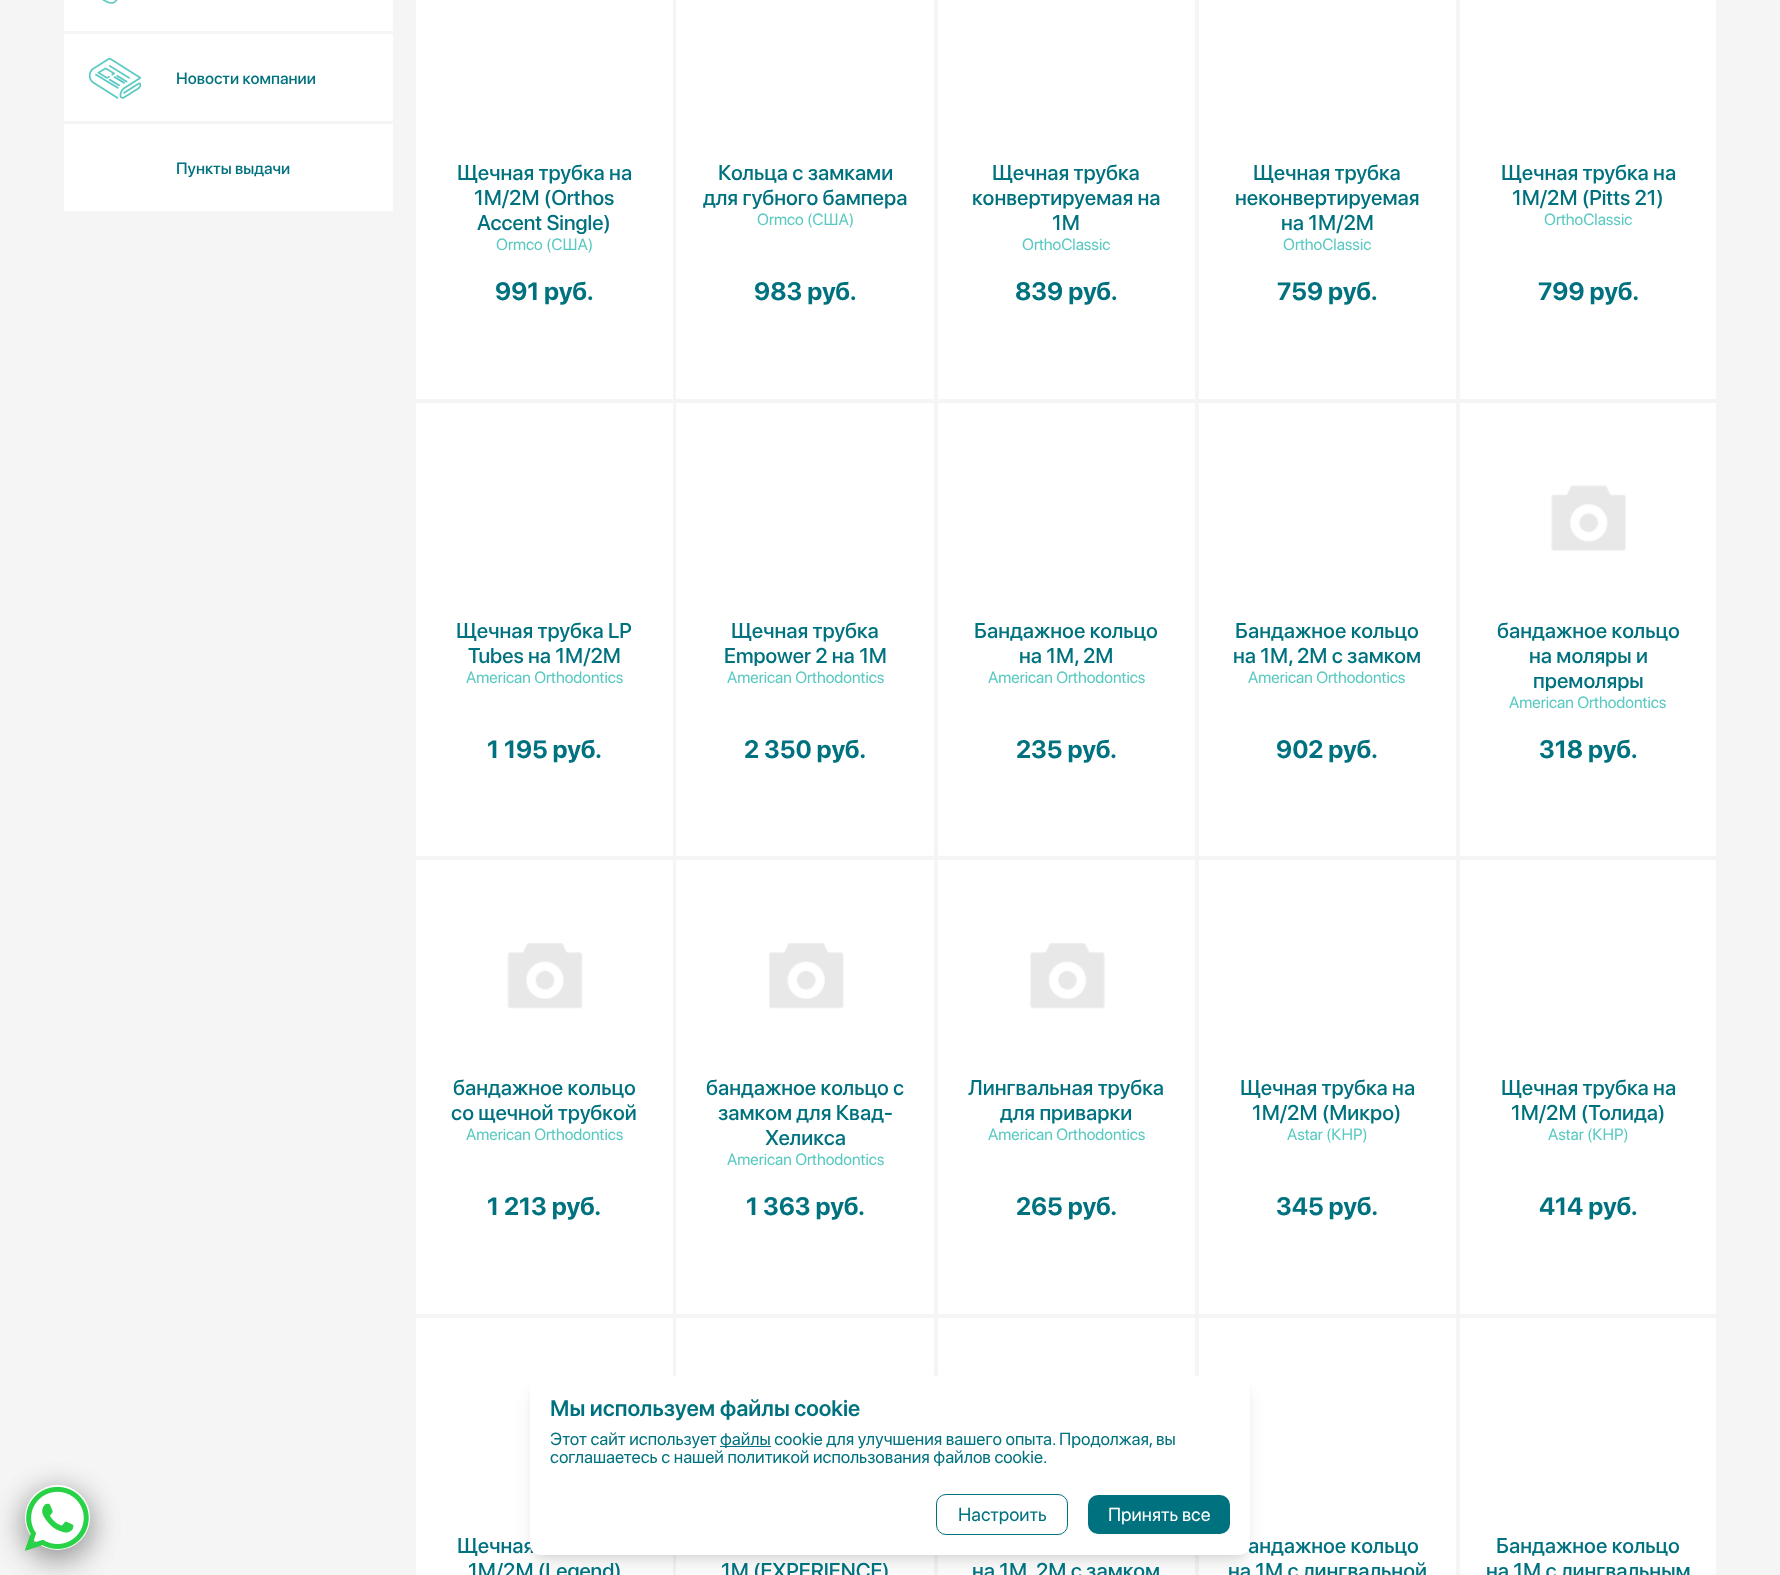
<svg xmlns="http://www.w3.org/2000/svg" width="1780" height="1575">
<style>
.a{font:500 16.25px SF Pro Display;fill:#00727f}
.b{font:500 21.25px SF Pro Display;fill:#00727f}
.c{font:16.25px SF Pro Display;fill:#59c9c1}
.d{font:bold 25px SF Pro Display;fill:#00727f}
.e{font:600 22.5px SF Pro Display;fill:#00727f}
.f{font:17.5px SF Pro Display;fill:#00727f}
.g{font:18.75px SF Pro Display;fill:#00727f}
.h{font:18.75px SF Pro Display;fill:#fff}
</style>
<defs>
<clipPath id="clip1"><path d="M703 616h205v50H703z"/></clipPath>
<clipPath id="clip2"><path d="M1486 616h204v75H1486z"/></clipPath>
</defs>
<rect width="100%" height="100%" fill="#f5f5f5"/>
<rect fill="#00000040" filter="blur(15.5px)" x="25" y="1493" width="65" height="65" rx="32.5"/>
<image href="2.png" x="25" y="1534" width="60" height="17"/>
<rect fill="#00000040" filter="blur(15.5px)" x="25" y="1493" width="65" height="65" rx="32.5"/>
<circle fill="#fff" cx="57.5" cy="1517.5" r="32.5"/>
<image href="1.png" x="25" y="1486" width="64" height="65"/>
<path fill="#fff" d="M64 0h329v31H64z"/>
<image href="3.png" x="102" y="0" width="16" height="4"/>
<path fill="#fff" d="M64 34h329v87H64z"/>
<image href="4.png" x="89" y="58" width="52" height="41"/>
<path fill="#fff" d="M64 124h329v87H64z"/>
<rect fill="#fff" x="416" y="-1" width="257" height="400" rx="1"/>
<rect fill="#fff" x="676" y="-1" width="258" height="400" rx="1"/>
<rect fill="#fff" x="938" y="-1" width="257" height="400" rx="1"/>
<rect fill="#fff" x="1199" y="-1" width="257" height="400" rx="1"/>
<rect fill="#fff" x="1460" y="-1" width="256" height="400" rx="1"/>
<rect fill="#fff" x="416" y="403" width="257" height="453" rx="1"/>
<rect fill="#fff" x="676" y="403" width="258" height="453" rx="1"/>
<rect fill="#fff" x="938" y="403" width="257" height="453" rx="1"/>
<rect fill="#fff" x="1199" y="403" width="257" height="453" rx="1"/>
<rect fill="#fff" x="1460" y="403" width="256" height="453" rx="1"/>
<image href="5.png" x="1551" y="485" width="75" height="66"/>
<rect fill="#fff" x="416" y="860" width="257" height="454" rx="1"/>
<image href="6.png" x="507" y="943" width="76" height="66"/>
<rect fill="#fff" x="676" y="860" width="258" height="454" rx="1"/>
<image href="7.png" x="769" y="943" width="75" height="66"/>
<rect fill="#fff" x="938" y="860" width="257" height="454" rx="1"/>
<image href="8.png" x="1030" y="943" width="75" height="66"/>
<rect fill="#fff" x="1199" y="860" width="257" height="454" rx="1"/>
<rect fill="#fff" x="1460" y="860" width="256" height="454" rx="1"/>
<rect fill="#fff" x="416" y="1318" width="257" height="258" rx="1"/>
<rect fill="#fff" x="676" y="1318" width="258" height="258" rx="1"/>
<rect fill="#fff" x="938" y="1318" width="257" height="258" rx="1"/>
<rect fill="#fff" x="1199" y="1318" width="257" height="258" rx="1"/>
<rect fill="#fff" x="1460" y="1318" width="256" height="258" rx="1"/>
<rect fill="#0000001a" filter="blur(4px)" x="535" y="1386" width="710" height="169" rx="5"/>
<rect fill="#0000001a" filter="blur(9.5px)" x="534" y="1393" width="712" height="171" rx="6"/>
<text class="a" x="176" y="84">Новости компании</text>
<text class="a" x="176" y="174">Пункты выдачи</text>
<text class="b" x="457" y="180">Щечная трубка на</text>
<text class="b" x="474" y="205">1М/2М (Orthos</text>
<text class="b" x="477" y="230">Accent Single)</text>
<text class="c" x="496" y="250">Ormco (США)</text>
<text class="d" x="495" y="300">991 руб.</text>
<text class="b" x="718" y="180">Кольца с замками</text>
<text class="b" x="703" y="205">для губного бампера</text>
<text class="c" x="757" y="225">Ormco (США)</text>
<text class="d" x="754" y="300">983 руб.</text>
<text class="b" x="992" y="180">Щечная трубка</text>
<text class="b" x="972" y="205">конвертируемая на</text>
<text class="b" x="1052" y="230">1М</text>
<text class="c" x="1022" y="250">OrthoClassic</text>
<text class="d" x="1015" y="300">839 руб.</text>
<text class="b" x="1253" y="180">Щечная трубка</text>
<text class="b" x="1235" y="205">неконвертируемая</text>
<text class="b" x="1281" y="230">на 1М/2М</text>
<text class="c" x="1283" y="250">OrthoClassic</text>
<text class="d" x="1277" y="300">759 руб.</text>
<text class="b" x="1501" y="180">Щечная трубка на</text>
<text class="b" x="1512" y="205">1М/2М (Pitts 21)</text>
<text class="c" x="1544" y="225">OrthoClassic</text>
<text class="d" x="1538" y="300">799 руб.</text>
<text class="b" x="456" y="638">Щечная трубка LP</text>
<text class="b" x="468" y="663">Tubes на 1М/2М</text>
<text class="c" x="466" y="683">American Orthodontics</text>
<text class="d" x="487" y="758">1 195 руб.</text>
<text class="b" x="731" y="638">Щечная трубка</text>
<g clip-path="url(#clip1)">
<text class="b" x="724" y="663">Empower 2 на 1М</text>
</g>
<text class="c" x="727" y="683">American Orthodontics</text>
<text class="d" x="744" y="758">2 350 руб.</text>
<text class="b" x="974" y="638">Бандажное кольцо</text>
<text class="b" x="1019" y="663">на 1М, 2М</text>
<text class="c" x="988" y="683">American Orthodontics</text>
<text class="d" x="1016" y="758">235 руб.</text>
<text class="b" x="1235" y="638">Бандажное кольцо</text>
<text class="b" x="1233" y="663">на 1М, 2М с замком</text>
<text class="c" x="1248" y="683">American Orthodontics</text>
<text class="d" x="1276" y="758">902 руб.</text>
<text class="b" x="1497" y="638">бандажное кольцо</text>
<text class="b" x="1529" y="663">на моляры и</text>
<g clip-path="url(#clip2)">
<text class="b" x="1533" y="688">премоляры</text>
</g>
<text class="c" x="1509" y="708">American Orthodontics</text>
<text class="d" x="1539" y="758">318 руб.</text>
<text class="b" x="453" y="1095">бандажное кольцо</text>
<text class="b" x="451" y="1120">со щечной трубкой</text>
<text class="c" x="466" y="1140">American Orthodontics</text>
<text class="d" x="487" y="1215">1 213 руб.</text>
<text class="b" x="706" y="1095">бандажное кольцо с</text>
<text class="b" x="718" y="1120">замком для Квад-</text>
<text class="b" x="765" y="1145">Хеликса</text>
<text class="c" x="727" y="1165">American Orthodontics</text>
<text class="d" x="746" y="1215">1 363 руб.</text>
<text class="b" x="968" y="1095">Лингвальная трубка</text>
<text class="b" x="1000" y="1120">для приварки</text>
<text class="c" x="988" y="1140">American Orthodontics</text>
<text class="d" x="1016" y="1215">265 руб.</text>
<text class="b" x="1240" y="1095">Щечная трубка на</text>
<text class="b" x="1252" y="1120">1М/2М (Микро)</text>
<text class="c" x="1287" y="1140">Astar (КНР)</text>
<text class="d" x="1276" y="1215">345 руб.</text>
<text class="b" x="1501" y="1095">Щечная трубка на</text>
<text class="b" x="1511" y="1120">1М/2М (Толида)</text>
<text class="c" x="1548" y="1140">Astar (КНР)</text>
<text class="d" x="1539" y="1215">414 руб.</text>
<text class="b" x="457" y="1553">Щечная</text>
<text class="b" x="468" y="1578">1М/2М (Legend)</text>
<text class="b" x="721" y="1578">1М (EXPERIENCE)</text>
<text class="b" x="972" y="1578">на 1М, 2М с замком</text>
<text class="b" x="1248" y="1553">андажное кольцо</text>
<text class="b" x="1228" y="1578">на 1М с лингвальной</text>
<text class="b" x="1496" y="1553">Бандажное кольцо</text>
<text class="b" x="1486" y="1578">на 1М с лингвальным</text>
<rect fill="#fff" x="530" y="1376" width="720" height="179" rx="10"/>
<text class="e" x="550" y="1416">Мы используем файлы cookie</text>
<text class="f" x="550" y="1445">Этот сайт использует</text>
<path fill="#00727f" d="M720 1446h51v1H720z"/>
<text class="f" x="720" y="1445">файлы cookie для улучшения вашего опыта. Продолжая, вы</text>
<text class="f" x="550" y="1463">соглашаетесь с нашей политикой использования файлов cookie.</text>
<rect fill="none" stroke="#00727f" x="936.5" y="1494.5" width="131" height="40" rx="9.5"/>
<text class="g" x="958" y="1521">Настроить</text>
<rect fill="#00727f" x="1088" y="1495" width="142" height="39" rx="10"/>
<text class="h" x="1108" y="1521">Принять все</text>
</svg>
